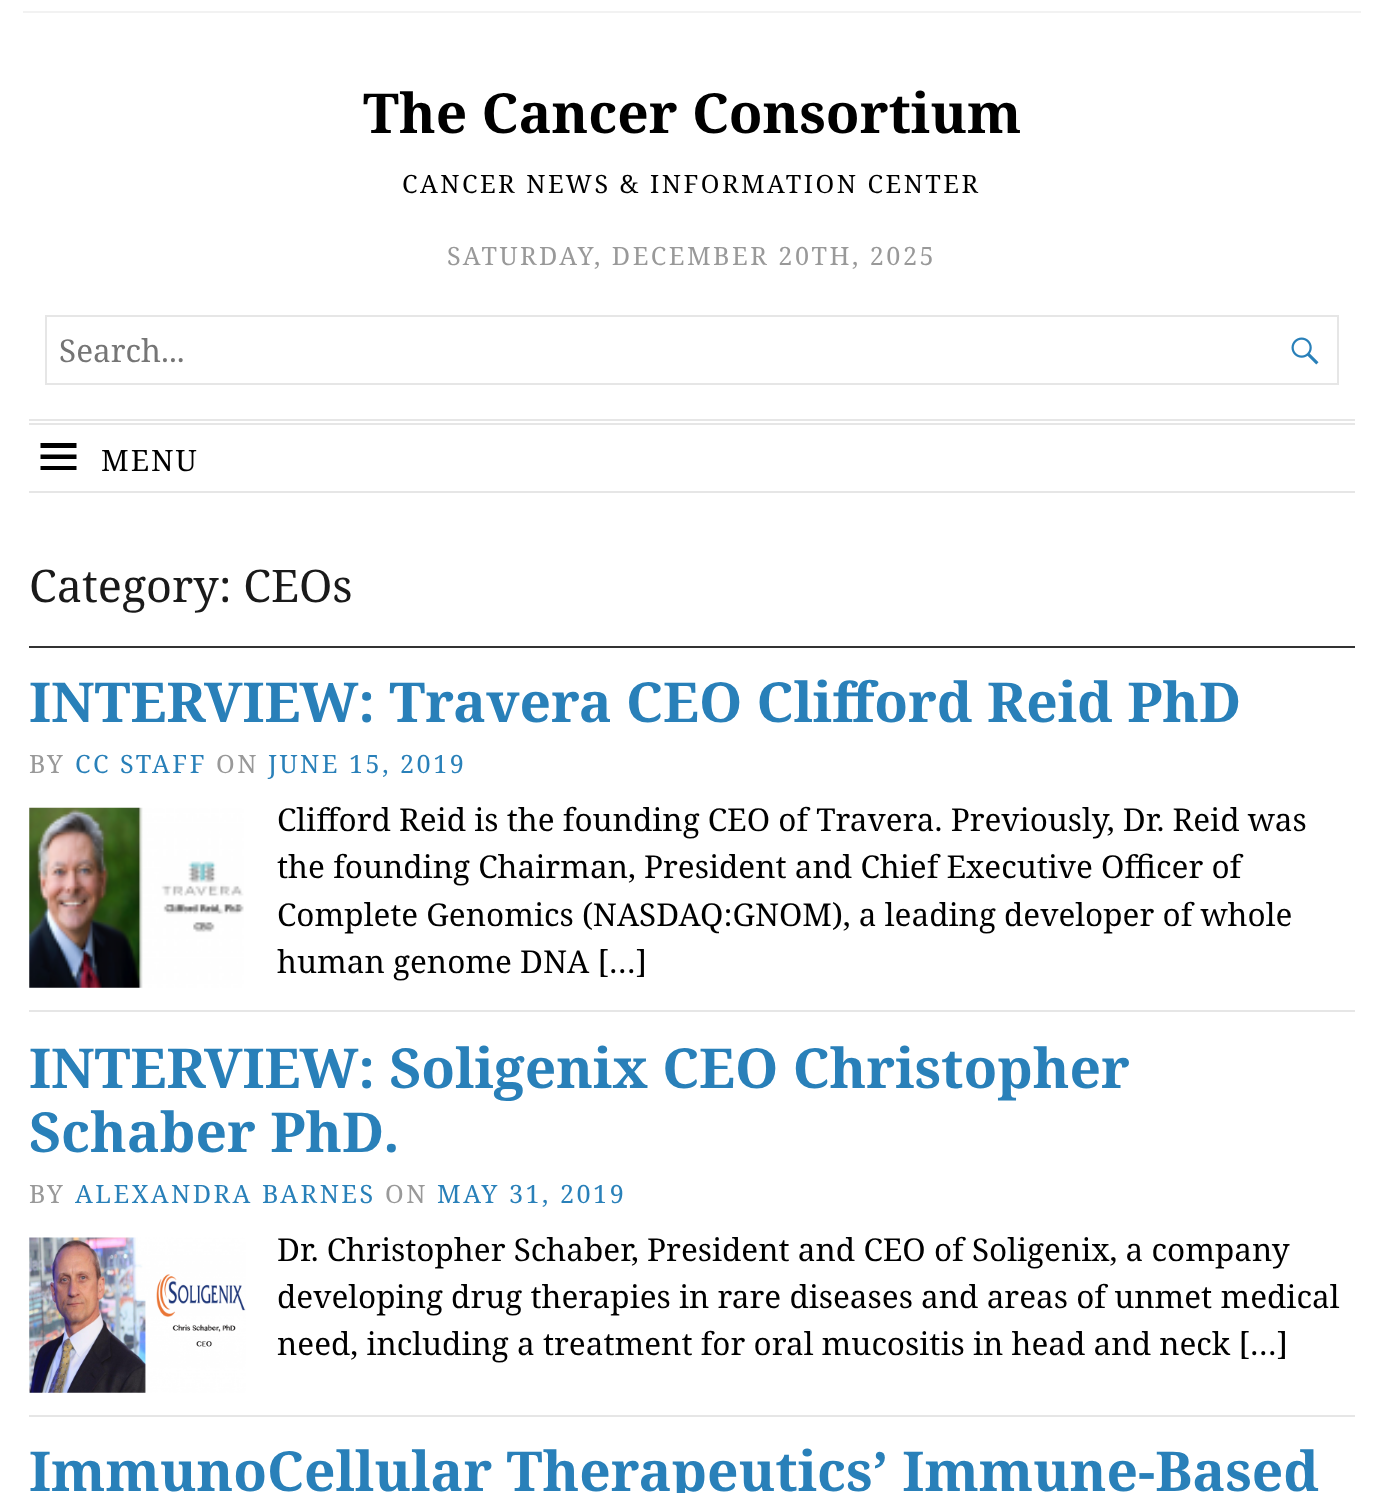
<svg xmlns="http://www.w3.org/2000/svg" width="1382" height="1493">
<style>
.a{font:bold 55.1px Noto Serif;fill:#000}
.b{font:25.2px Noto Serif;letter-spacing:2.5px;fill:#000}
.c{font:25.2px Noto Serif;letter-spacing:2.5px;fill:#999}
.d{font:31.5px Noto Serif;fill:#757575}
.e{font:29.5px Noto Serif;letter-spacing:2px;fill:#000}
.f{font:45px Noto Serif;fill:#1a1a1a}
.g{font:bold 55.1px Noto Serif;fill:#2980b9}
.h{font:25.2px Noto Serif;letter-spacing:2.5px;fill:#2980b9}
.i{font:31.5px Noto Serif;fill:#000}
</style>
<rect width="100%" height="100%" fill="#fff"/>
<path fill="#f2f2f2" d="M23 11h1338v2H23z"/>
<path fill="none" stroke="#e6e6e6" stroke-width="2" d="M46 316h1292v68H46z"/>
<image href="1.png" x="1291" y="337" width="28" height="28"/>
<path fill="#e6e6e6" d="M29 419h1326v2H29z"/>
<path fill="#e6e6e6" d="M29 423h1326v2H29z"/>
<path fill="#e6e6e6" d="M29 491h1326v2H29z"/>
<path fill="#000" d="M40.5 470v-4h36v4zm0-11v-4.5h36v4.5zm0-11v-5h36v5z"/>
<path fill="#333" d="M29 646h1326v2H29z"/>
<path fill="#e6e6e6" d="M29 1010h1326v2H29z"/>
<image href="2.png" x="29" y="807" width="215" height="181"/>
<path fill="#e6e6e6" d="M29 1415h1326v2H29z"/>
<image href="3.png" x="29" y="1237" width="217" height="156"/>
<text class="a" x="363" y="133">The Cancer Consortium</text>
<text class="b" x="402" y="193">CANCER NEWS &amp; INFORMATION CENTER</text>
<text class="c" x="447" y="265">SATURDAY, DECEMBER 20TH, 2025</text>
<text class="d" x="59" y="362">Search...</text>
<text class="e" x="101" y="471">MENU</text>
<text class="f" x="29" y="602">Category: CEOs</text>
<text class="g" x="29" y="722">INTERVIEW: Travera CEO Clifford Reid PhD</text>
<text class="c" x="29" y="773">BY</text>
<text class="h" x="75" y="773">CC STAFF</text>
<text class="c" x="216" y="773">ON</text>
<text class="h" x="268" y="773">JUNE 15, 2019</text>
<text class="i" x="277" y="831">Clifford Reid is the founding CEO of Travera. Previously, Dr. Reid was</text>
<text class="i" x="277" y="878">the founding Chairman, President and Chief Executive Officer of</text>
<text class="i" x="277" y="926">Complete Genomics (NASDAQ:GNOM), a leading developer of whole</text>
<text class="i" x="277" y="973">human genome DNA […]</text>
<text class="g" x="29" y="1088">INTERVIEW: Soligenix CEO Christopher</text>
<text class="g" x="29" y="1152">Schaber PhD.</text>
<text class="c" x="29" y="1203">BY</text>
<text class="h" x="75" y="1203">ALEXANDRA BARNES</text>
<text class="c" x="385" y="1203">ON</text>
<text class="h" x="437" y="1203">MAY 31, 2019</text>
<text class="i" x="277" y="1261">Dr. Christopher Schaber, President and CEO of Soligenix, a company</text>
<text class="i" x="277" y="1308">developing drug therapies in rare diseases and areas of unmet medical</text>
<text class="i" x="277" y="1355">need, including a treatment for oral mucositis in head and neck […]</text>
<text class="g" x="29" y="1491">ImmunoCellular Therapeutics’ Immune-Based</text>
</svg>
